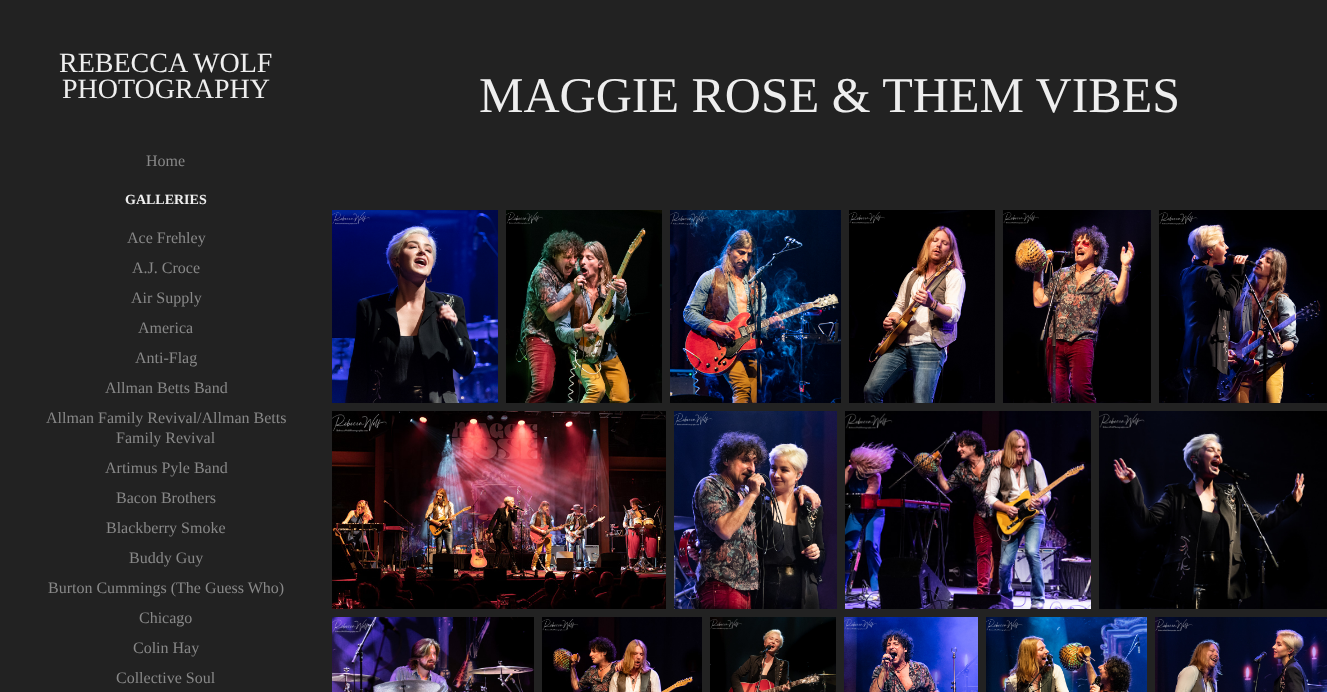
<svg xmlns="http://www.w3.org/2000/svg" width="1327" height="692">
<style>
.a{font:28px Liberation Serif;fill:#eee}
.b{font:16px Liberation Serif;fill:#888}
.c{font:bold 14px Liberation Serif;fill:#eee}
.d{font:50px Liberation Serif;fill:#eee}
</style>
<rect width="100%" height="100%" fill="#222"/>
<image href="1.png" x="332" y="210" width="166" height="193"/>
<image href="2.png" x="506" y="210" width="156" height="193"/>
<image href="3.png" x="670" y="210" width="171" height="193"/>
<image href="4.png" x="849" y="210" width="146" height="193"/>
<image href="5.png" x="1003" y="210" width="148" height="193"/>
<image href="6.png" x="1159" y="210" width="168" height="193"/>
<image href="7.png" x="332" y="411" width="334" height="198"/>
<image href="8.png" x="674" y="411" width="163" height="198"/>
<image href="9.png" x="845" y="411" width="246" height="198"/>
<image href="10.png" x="1099" y="411" width="228" height="198"/>
<image href="11.png" x="332" y="617" width="202" height="75"/>
<image href="12.png" x="542" y="617" width="160" height="75"/>
<image href="13.png" x="710" y="617" width="126" height="75"/>
<image href="14.png" x="844" y="617" width="134" height="75"/>
<image href="15.png" x="986" y="617" width="161" height="75"/>
<image href="16.png" x="1155" y="617" width="172" height="75"/>
<text class="a" x="59" y="72">REBECCA WOLF</text>
<text class="a" x="62" y="98">PHOTOGRAPHY</text>
<text class="b" x="146" y="166">Home</text>
<text class="c" x="125" y="204">GALLERIES</text>
<text class="b" x="127" y="243">Ace Frehley</text>
<text class="b" x="132" y="273">A.J. Croce</text>
<text class="b" x="131" y="303">Air Supply</text>
<text class="b" x="138" y="333">America</text>
<text class="b" x="135" y="363">Anti-Flag</text>
<text class="b" x="105" y="393">Allman Betts Band</text>
<text class="b" x="46" y="423">Allman Family Revival/Allman Betts</text>
<text class="b" x="116" y="443">Family Revival</text>
<text class="b" x="105" y="473">Artimus Pyle Band</text>
<text class="b" x="116" y="503">Bacon Brothers</text>
<text class="b" x="106" y="533">Blackberry Smoke</text>
<text class="b" x="129" y="563">Buddy Guy</text>
<text class="b" x="48" y="593">Burton Cummings (The Guess Who)</text>
<text class="b" x="139" y="623">Chicago</text>
<text class="b" x="133" y="653">Colin Hay</text>
<text class="b" x="116" y="683">Collective Soul</text>
<text class="d" x="479" y="112">MAGGIE ROSE &amp; THEM VIBES</text>
</svg>
